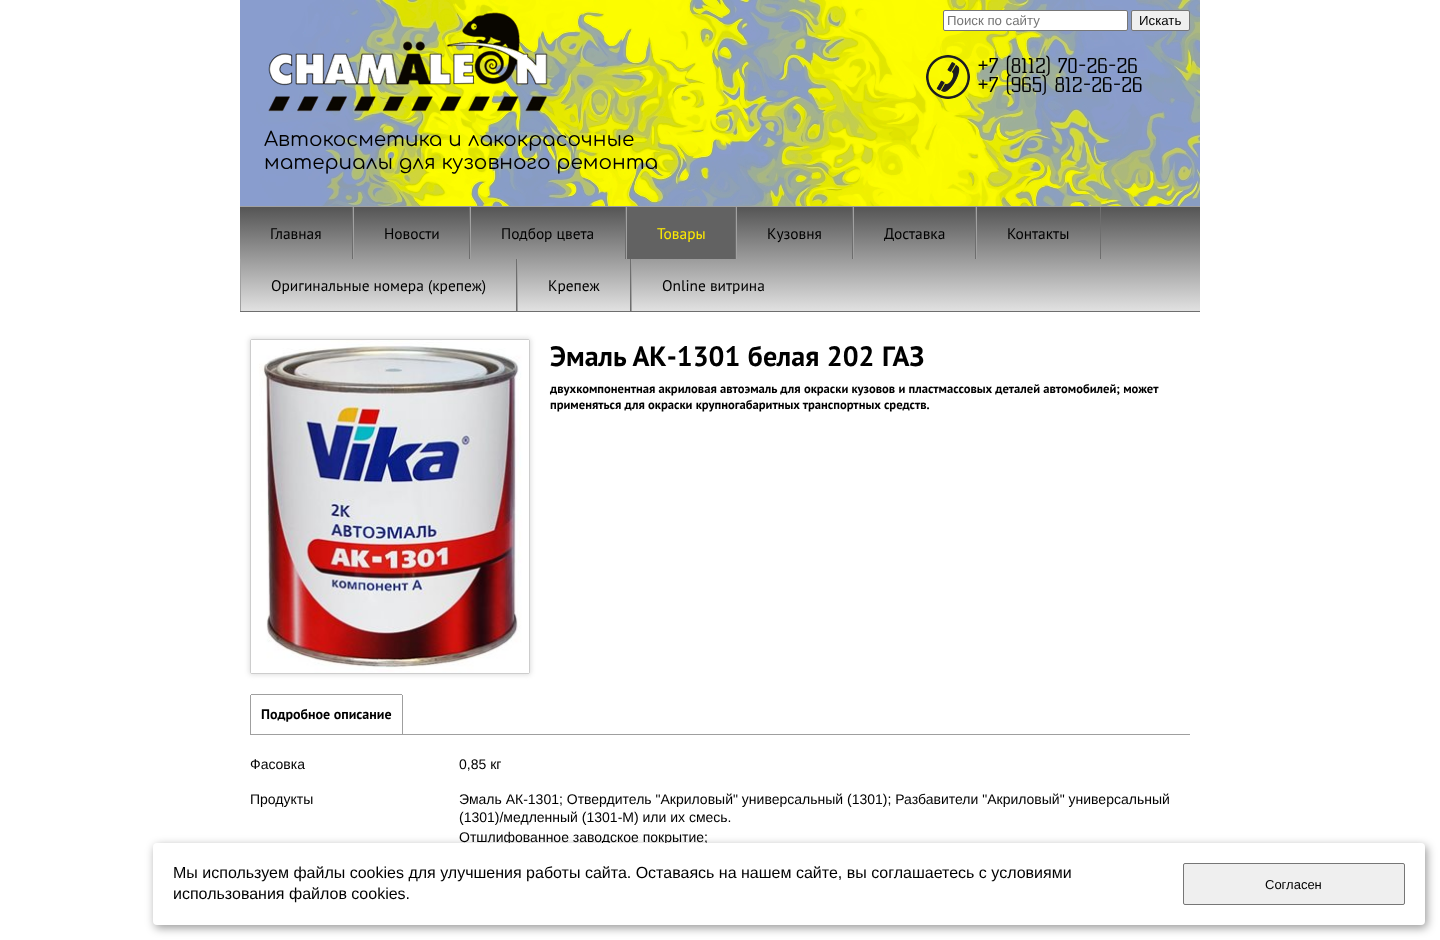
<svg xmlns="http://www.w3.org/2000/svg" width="1440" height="940">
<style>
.a{font:13.25px Liberation Sans;fill:#757575}
.b{font:13.25px Liberation Sans;fill:#000}
.c{font:20px Kelly Slab;fill:#000}
.d{font:20px Comfortaa;fill:#000}
.e{font:15.4px PT Sans;fill:#000}
.f{font:15.4px PT Sans;fill:#ffec00}
.g{font:bold 28px PT Sans;fill:#000}
.h{font:bold 12.6px PT Sans;fill:#000}
.i{font:bold 14px PT Sans;fill:#000}
.j{font:14px Liberation Sans;fill:#000}
.k{font:16px Liberation Sans;fill:#000}
.l{font:13px Liberation Sans;fill:#000}
</style>
<defs>
<linearGradient id="g1" gradientUnits="userSpaceOnUse" x1="720" y1="207" x2="720" y2="311"><stop offset="0" stop-color="#555"/><stop offset="1" stop-color="#e1e1e1"/></linearGradient>
</defs>
<rect width="100%" height="100%" fill="#fff"/>
<image href="1.png" x="240" y="0" width="960" height="206"/>
<rect fill="#fff" stroke="#767676" x="943.5" y="10.5" width="184" height="20" rx="1.5"/>
<rect fill="#efefef" stroke="#767676" x="1131.5" y="10.5" width="58" height="20" rx="1.5"/>
<image href="2.png" x="268" y="12" width="280" height="100"/>
<image href="3.png" x="926" y="55" width="44" height="44"/>
<path fill="url(#g1)" d="M240 207h960v104H240z"/>
<path fill="#a1a1a1" d="M240 206h960v1H240z"/>
<path fill="#6e6e6e" d="M240 311h960v1H240z"/>
<path fill="#6e6e6e" d="M352 207h1v52H352z"/>
<path fill="#6e6e6e" d="M469 207h1v52H469z"/>
<path fill="#a1a1a1" d="M353 207h1v52H353z"/>
<path fill="#6e6e6e" d="M625 207h1v52H625z"/>
<path fill="#a1a1a1" d="M470 207h1v52H470z"/>
<path fill="#6e6e6e" d="M735 207h1v52H735z"/>
<path fill="#a1a1a1" d="M626 207h1v52H626z"/>
<path fill="#626262" d="M627 207h108v52H627z"/>
<path fill="#6e6e6e" d="M852 207h1v52H852z"/>
<path fill="#a1a1a1" d="M736 207h1v52H736z"/>
<path fill="#6e6e6e" d="M975 207h1v52H975z"/>
<path fill="#a1a1a1" d="M853 207h1v52H853z"/>
<path fill="#6e6e6e" d="M1100 207h1v52H1100z"/>
<path fill="#a1a1a1" d="M976 207h1v52H976z"/>
<path fill="#6e6e6e" d="M516 259h1v52H516z"/>
<path fill="#a1a1a1" d="M240 259h1v52H240z"/>
<path fill="#6e6e6e" d="M630 259h1v52H630z"/>
<path fill="#a1a1a1" d="M517 259h1v52H517z"/>
<path fill="#a1a1a1" d="M631 259h1v52H631z"/>
<rect fill="#dfdfdf" filter="blur(2.5px)" x="249" y="338" width="282" height="337" rx="3"/>
<rect fill="none" stroke="#cdcdcd" x="250.5" y="339.5" width="279" height="334" rx="1.5"/>
<image href="4.png" x="251" y="340" width="278" height="333"/>
<path fill="#9f9f9f" d="M251 694h151v1H251z"/>
<path fill="#9f9f9f" d="M402 695h1v39H402z"/>
<path fill="#9f9f9f" d="M250 695h1v39H250z"/>
<path fill="#9f9f9f" d="M250 734h940v1H250z"/>
<rect fill="#00000066" filter="blur(5px)" x="155" y="846" width="1272" height="82" rx="4"/>
<text class="a" x="947" y="25">Поиск по сайту</text>
<text class="b" x="1139" y="25">Искать</text>
<text class="c" x="977" y="73">+7 (8112) 70-26-26</text>
<text class="c" x="977" y="92">+7 (965) 812-26-26</text>
<text class="d" x="264" y="146">Автокосметика и лакокрасочные</text>
<text class="d" x="264" y="169">материалы для кузовного ремонта</text>
<text class="e" x="270" y="239">Главная</text>
<text class="e" x="384" y="239">Новости</text>
<text class="e" x="501" y="239">Подбор цвета</text>
<text class="f" x="657" y="239">Товары</text>
<text class="e" x="767" y="239">Кузовня</text>
<text class="e" x="884" y="239">Доставка</text>
<text class="e" x="1007" y="239">Контакты</text>
<text class="e" x="271" y="291">Оригинальные номера (крепеж)</text>
<text class="e" x="548" y="291">Крепеж</text>
<text class="e" x="662" y="291">Online витрина</text>
<text class="g" x="550" y="366" word-spacing="0.5">Эмаль АК-1301 белая 202 ГАЗ</text>
<text class="h" x="550" y="393">двухкомпонентная акриловая автоэмаль для окраски кузовов и пластмассовых деталей автомобилей; может</text>
<text class="h" x="550" y="409">применяться для окраски крупногабаритных транспортных средств.</text>
<text class="i" x="261" y="719">Подробное описание</text>
<text class="j" x="250" y="769">Фасовка</text>
<text class="j" x="459" y="769">0,85 кг</text>
<text class="j" x="250" y="804">Продукты</text>
<text class="j" x="459" y="804">Эмаль АК-1301; Отвердитель "Акриловый" универсальный (1301); Разбавители "Акриловый" универсальный</text>
<text class="j" x="459" y="822">(1301)/медленный (1301-М) или их смесь.</text>
<text class="j" x="459" y="842">Отшлифованное заводское покрытие;</text>
<rect fill="#fff" x="153" y="843" width="1272" height="82" rx="4"/>
<text class="k" x="173" y="878">Мы используем файлы cookies для улучшения работы сайта. Оставаясь на нашем сайте, вы соглашаетесь с условиями</text>
<text class="k" x="173" y="899">использования файлов cookies.</text>
<rect fill="#efefef" stroke="#767676" x="1183.5" y="863.5" width="221" height="41" rx="1.5"/>
<text class="l" x="1265" y="889">Согласен</text>
</svg>
